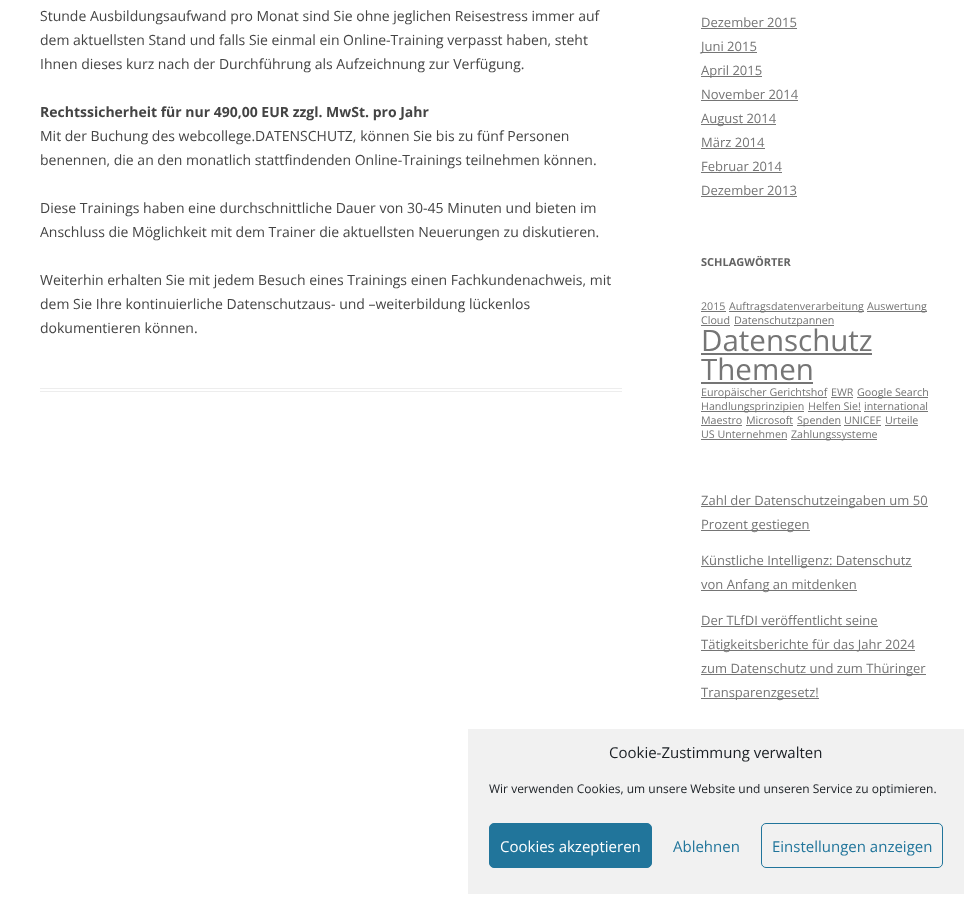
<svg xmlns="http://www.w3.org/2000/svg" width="974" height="904">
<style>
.a{font:14px Open Sans;fill:#444}
.b{font:bold 14px Open Sans;fill:#444}
.c{font:13px Open Sans;fill:#757575}
.d{font:bold 11px Open Sans;fill:#636363}
.e{font:10.7px Open Sans;fill:#757575}
.f{font:29.5px Open Sans;fill:#757575}
.g{font:15px Open Sans;fill:#191e23}
.h{font:12px Open Sans;fill:#191e23}
.i{font:15px Open Sans;fill:#fff}
.j{font:15px Open Sans;fill:#21759b}
</style>
<rect width="100%" height="100%" fill="#fff"/>
<path fill="#ededed" d="M40 388h582v1H40z"/>
<path fill="#ededed" d="M40 391h582v1H40z"/>
<path fill="#757575" d="M701 28h96v1H701z"/>
<path fill="#757575" d="M701 52h56v1H701z"/>
<path fill="#757575" d="M701 76h61v1H701z"/>
<path fill="#757575" d="M701 100h97v1H701z"/>
<path fill="#757575" d="M701 124h75v1H701z"/>
<path fill="#757575" d="M701 148h64v1H701z"/>
<path fill="#757575" d="M701 172h81v1H701z"/>
<path fill="#757575" d="M701 196h96v1H701z"/>
<path fill="#757575" d="M701 311h25v1H701z"/>
<path fill="#757575" d="M729 311h135v1H729z"/>
<path fill="#757575" d="M867 311h60v1H867z"/>
<path fill="#757575" d="M701 325h29v1H701z"/>
<path fill="#757575" d="M734 325h100v1H734z"/>
<path fill="#757575" d="M701 353h171v2H701z"/>
<path fill="#757575" d="M701 382h112v2H701z"/>
<path fill="#757575" d="M701 397h126v1H701z"/>
<path fill="#757575" d="M831 397h22v1H831z"/>
<path fill="#757575" d="M857 397h71v1H857z"/>
<path fill="#757575" d="M701 411h103v1H701z"/>
<path fill="#757575" d="M808 411h53v1H808z"/>
<path fill="#757575" d="M864 411h64v1H864z"/>
<path fill="#757575" d="M701 425h41v1H701z"/>
<path fill="#757575" d="M746 425h47v1H746z"/>
<path fill="#757575" d="M797 425h44v1H797z"/>
<path fill="#757575" d="M844 425h37v1H844z"/>
<path fill="#757575" d="M885 425h33v1H885z"/>
<path fill="#757575" d="M701 439h86v1H701z"/>
<path fill="#757575" d="M791 439h86v1H791z"/>
<path fill="#757575" d="M701 506h227v1H701z"/>
<path fill="#757575" d="M701 530h109v1H701z"/>
<path fill="#757575" d="M701 566h211v1H701z"/>
<path fill="#757575" d="M701 590h156v1H701z"/>
<path fill="#757575" d="M701 626h177v1H701z"/>
<path fill="#757575" d="M701 650h214v1H701z"/>
<path fill="#757575" d="M701 674h225v1H701z"/>
<path fill="#757575" d="M701 698h118v1H701z"/>
<path fill="#f1f1f1" d="M468 729h496v165H468z"/>
<rect fill="#21759b" stroke="#21759b" x="489.5" y="823.5" width="162" height="44" rx="4.5"/>
<rect fill="none" stroke="#21759b" x="761.5" y="823.5" width="181" height="44" rx="4.5"/>
<text class="a" x="40" y="21">Stunde Ausbildungsaufwand pro Monat sind Sie ohne jeglichen Reisestress immer auf</text>
<text class="a" x="40" y="45">dem aktuellsten Stand und falls Sie einmal ein Online-Training verpasst haben, steht</text>
<text class="a" x="40" y="69">Ihnen dieses kurz nach der Durchführung als Aufzeichnung zur Verfügung.</text>
<text class="b" x="40" y="117">Rechtssicherheit für nur 490,00 EUR zzgl. MwSt. pro Jahr</text>
<text class="a" x="40" y="141">Mit der Buchung des webcollege.DATENSCHUTZ, können Sie bis zu fünf Personen</text>
<text class="a" x="40" y="165">benennen, die an den monatlich stattfindenden Online-Trainings teilnehmen können.</text>
<text class="a" x="40" y="213">Diese Trainings haben eine durchschnittliche Dauer von 30-45 Minuten und bieten im</text>
<text class="a" x="40" y="237">Anschluss die Möglichkeit mit dem Trainer die aktuellsten Neuerungen zu diskutieren.</text>
<text class="a" x="40" y="285">Weiterhin erhalten Sie mit jedem Besuch eines Trainings einen Fachkundenachweis, mit</text>
<text class="a" x="40" y="309">dem Sie Ihre kontinuierliche Datenschutzaus- und –weiterbildung lückenlos</text>
<text class="a" x="40" y="333">dokumentieren können.</text>
<text class="c" x="701" y="27">Dezember 2015</text>
<text class="c" x="701" y="51">Juni 2015</text>
<text class="c" x="701" y="75">April 2015</text>
<text class="c" x="701" y="99">November 2014</text>
<text class="c" x="701" y="123">August 2014</text>
<text class="c" x="701" y="147">März 2014</text>
<text class="c" x="701" y="171">Februar 2014</text>
<text class="c" x="701" y="195">Dezember 2013</text>
<text class="d" x="701" y="266">SCHLAGWÖRTER</text>
<text class="e" x="701" y="310">2015</text>
<text class="e" x="729" y="310">Auftragsdatenverarbeitung</text>
<text class="e" x="867" y="310">Auswertung</text>
<text class="e" x="701" y="324">Cloud</text>
<text class="e" x="734" y="324">Datenschutzpannen</text>
<text class="f" x="701" y="351">Datenschutz</text>
<text class="f" x="701" y="380">Themen</text>
<text class="e" x="701" y="396">Europäischer Gerichtshof</text>
<text class="e" x="831" y="396">EWR</text>
<text class="e" x="857" y="396">Google Search</text>
<text class="e" x="701" y="410">Handlungsprinzipien</text>
<text class="e" x="808" y="410">Helfen Sie!</text>
<text class="e" x="864" y="410">international</text>
<text class="e" x="701" y="424">Maestro</text>
<text class="e" x="746" y="424">Microsoft</text>
<text class="e" x="797" y="424">Spenden</text>
<text class="e" x="844" y="424">UNICEF</text>
<text class="e" x="885" y="424">Urteile</text>
<text class="e" x="701" y="438">US Unternehmen</text>
<text class="e" x="791" y="438">Zahlungssysteme</text>
<text class="c" x="701" y="505">Zahl der Datenschutzeingaben um 50</text>
<text class="c" x="701" y="529">Prozent gestiegen</text>
<text class="c" x="701" y="565">Künstliche Intelligenz: Datenschutz</text>
<text class="c" x="701" y="589">von Anfang an mitdenken</text>
<text class="c" x="701" y="625">Der TLfDI veröffentlicht seine</text>
<text class="c" x="701" y="649">Tätigkeitsberichte für das Jahr 2024</text>
<text class="c" x="701" y="673">zum Datenschutz und zum Thüringer</text>
<text class="c" x="701" y="697">Transparenzgesetz!</text>
<text class="g" x="609" y="758">Cookie-Zustimmung verwalten</text>
<text class="h" x="489" y="793">Wir verwenden Cookies, um unsere Website und unseren Service zu optimieren.</text>
<text class="i" x="500" y="852">Cookies akzeptieren</text>
<text class="j" x="673" y="852">Ablehnen</text>
<text class="j" x="772" y="852">Einstellungen anzeigen</text>
</svg>
